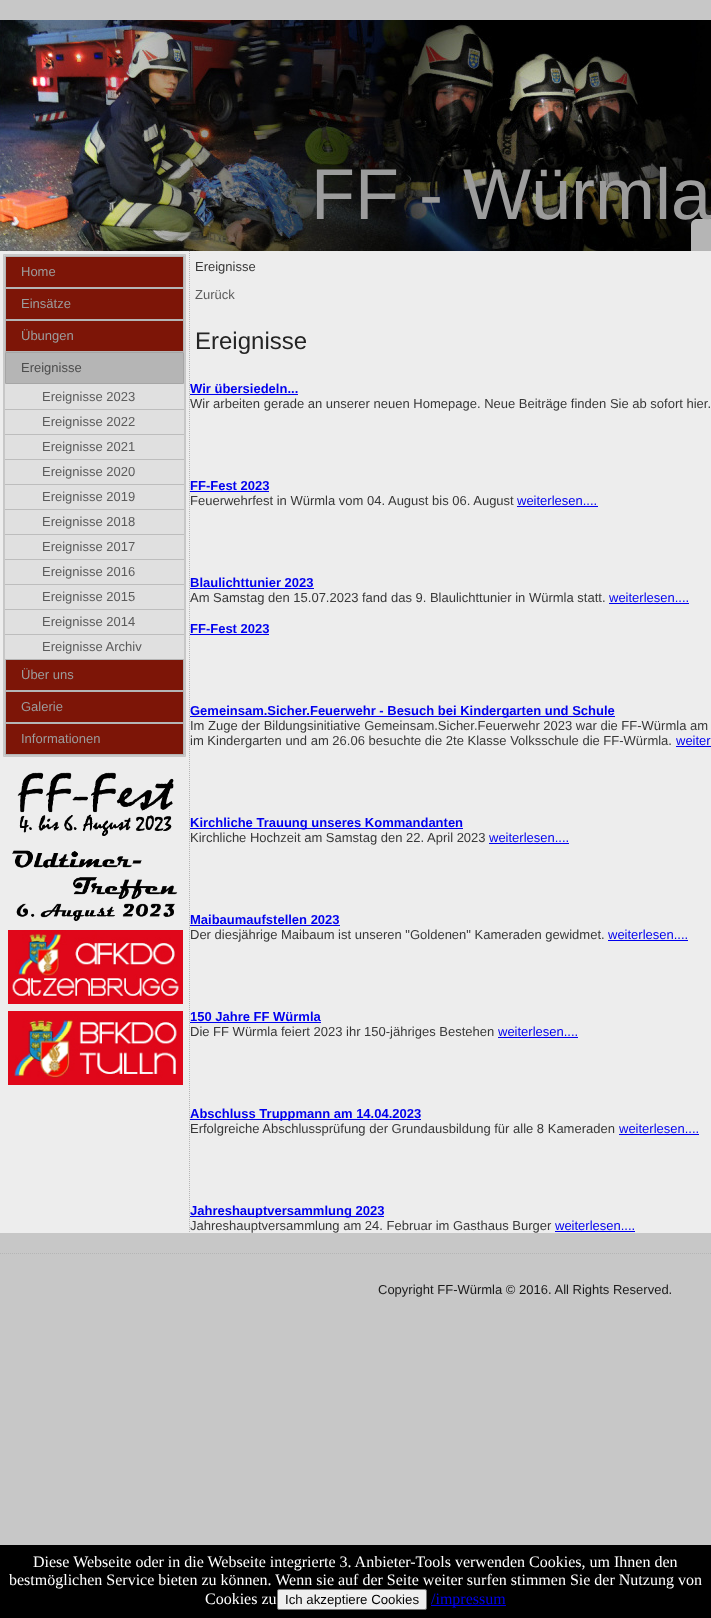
<svg xmlns="http://www.w3.org/2000/svg" width="711" height="1618">
<style>
.a{font:72px Liberation Sans;fill:#9c9c9c}
.b{font:13px Liberation Sans;fill:#9c9c9c}
.c{font:13px Liberation Sans;fill:#4d4d4d}
.d{font:13px Liberation Sans;fill:#5c5c5c}
.e{font:13px Liberation Sans;fill:#383838}
.f{font:24px Liberation Sans;fill:#242424}
.g{font:bold 13px Liberation Sans;fill:#00e}
.h{font:13px Liberation Sans;fill:#00e}
.i{font:13px Liberation Sans;fill:#1a1a1a}
.j{font:16px Liberation Serif;fill:#fff}
.k{font:13.25px Liberation Sans;fill:#000}
.l{font:16px Liberation Serif;fill:#00e}
</style>
<rect width="100%" height="100%" fill="#c7c7c7"/>
<image href="1.png" x="0" y="20" width="711" height="231"/>
<path fill="#b5b5b5" d="M697 219h14c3.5 0 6 2.5 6 6v26h-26v-26c0-3.5 2.5-6 6-6z"/>
<path fill="#ededed" d="M0 251h711v982H0z"/>
<path fill="none" stroke="#b5b5b5" stroke-dasharray="1 1" d="M189.5 251v982"/>
<path fill="none" stroke="#c7c7c7" d="M3.5 254.5h182v502H3.5z"/>
<path fill="#e0e0e0" d="M5 384h179v275H5z"/>
<path fill="none" stroke="#c7c7c7" d="M4.5 255.5h180v500H4.5z"/>
<path fill="#7d1507" stroke="#b5b5b5" d="M5.5 256.5h178v31H5.5z"/>
<path fill="#7d1507" stroke="#b5b5b5" d="M5.5 288.5h178v31H5.5z"/>
<path fill="#7d1507" stroke="#b5b5b5" d="M5.5 320.5h178v31H5.5z"/>
<path fill="#b5b5b5" stroke="#a6a6a6" d="M5.5 352.5h178v31H5.5z"/>
<path fill="#bdbdbd" d="M5 409h179v1H5z"/>
<path fill="#bdbdbd" d="M5 434h179v1H5z"/>
<path fill="#bdbdbd" d="M5 459h179v1H5z"/>
<path fill="#bdbdbd" d="M5 484h179v1H5z"/>
<path fill="#bdbdbd" d="M5 509h179v1H5z"/>
<path fill="#bdbdbd" d="M5 534h179v1H5z"/>
<path fill="#bdbdbd" d="M5 559h179v1H5z"/>
<path fill="#bdbdbd" d="M5 584h179v1H5z"/>
<path fill="#bdbdbd" d="M5 609h179v1H5z"/>
<path fill="#bdbdbd" d="M5 634h179v1H5z"/>
<path fill="#7d1507" stroke="#b5b5b5" d="M5.5 659.5h178v31H5.5z"/>
<path fill="#7d1507" stroke="#b5b5b5" d="M5.5 691.5h178v31H5.5z"/>
<path fill="#7d1507" stroke="#b5b5b5" d="M5.5 723.5h178v31H5.5z"/>
<image href="2.png" x="12" y="772" width="166" height="150"/>
<image href="3.png" x="8" y="930" width="175" height="74"/>
<image href="4.png" x="8" y="1011" width="175" height="74"/>
<path fill="#00e" d="M190 394h108v1H190z"/>
<path fill="#00e" d="M190 491h79v1H190z"/>
<path fill="#00e" d="M517 506h81v1H517z"/>
<path fill="#00e" d="M190 588h124v1H190z"/>
<path fill="#00e" d="M609 603h80v1H609z"/>
<path fill="#00e" d="M190 634h79v1H190z"/>
<path fill="#00e" d="M190 716h425v1H190z"/>
<path fill="#00e" d="M676 746h35v1H676z"/>
<path fill="#00e" d="M190 828h273v1H190z"/>
<path fill="#00e" d="M489 843h80v1H489z"/>
<path fill="#00e" d="M190 925h150v1H190z"/>
<path fill="#00e" d="M608 940h80v1H608z"/>
<path fill="#00e" d="M190 1022h131v1H190z"/>
<path fill="#00e" d="M498 1037h80v1H498z"/>
<path fill="#00e" d="M190 1119h231v1H190z"/>
<path fill="#00e" d="M619 1134h80v1H619z"/>
<path fill="#00e" d="M190 1216h194v1H190z"/>
<path fill="#00e" d="M555 1231h80v1H555z"/>
<path fill="none" stroke="#b5b5b5" stroke-dasharray="1 1" d="M0 1253.5h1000"/>
<path fill="#000" d="M0 1545h711v73H0z"/>
<rect fill="#efefef" stroke="#767676" x="277.5" y="1589.5" width="149" height="20" rx="1.5"/>
<path fill="#00e" d="M431 1605h75v1H431z"/>
<text class="a" x="311" y="219">FF - Würmla</text>
<text class="b" x="21" y="276">Home</text>
<text class="b" x="21" y="308">Einsätze</text>
<text class="b" x="21" y="340">Übungen</text>
<text class="c" x="21" y="372">Ereignisse</text>
<text class="d" x="42" y="401">Ereignisse 2023</text>
<text class="d" x="42" y="426">Ereignisse 2022</text>
<text class="d" x="42" y="451">Ereignisse 2021</text>
<text class="d" x="42" y="476">Ereignisse 2020</text>
<text class="d" x="42" y="501">Ereignisse 2019</text>
<text class="d" x="42" y="526">Ereignisse 2018</text>
<text class="d" x="42" y="551">Ereignisse 2017</text>
<text class="d" x="42" y="576">Ereignisse 2016</text>
<text class="d" x="42" y="601">Ereignisse 2015</text>
<text class="d" x="42" y="626">Ereignisse 2014</text>
<text class="d" x="42" y="651">Ereignisse Archiv</text>
<text class="b" x="21" y="679">Über uns</text>
<text class="b" x="21" y="711">Galerie</text>
<text class="b" x="21" y="743">Informationen</text>
<text class="e" x="195" y="271">Ereignisse</text>
<text class="d" x="195" y="299">Zurück</text>
<text class="f" x="195" y="349">Ereignisse</text>
<text class="g" x="190" y="393">Wir übersiedeln...</text>
<text class="e" x="190" y="408">Wir arbeiten gerade an unserer neuen Homepage. Neue Beiträge finden Sie ab sofort hier.</text>
<text class="g" x="190" y="490">FF-Fest 2023</text>
<text class="e" x="190" y="505">Feuerwehrfest in Würmla vom 04. August bis 06. August</text>
<text class="h" x="517" y="505">weiterlesen....</text>
<text class="g" x="190" y="587">Blaulichttunier 2023</text>
<text class="e" x="190" y="602">Am Samstag den 15.07.2023 fand das 9. Blaulichttunier in Würmla statt.</text>
<text class="h" x="609" y="602">weiterlesen....</text>
<text class="g" x="190" y="633">FF-Fest 2023</text>
<text class="g" x="190" y="715">Gemeinsam.Sicher.Feuerwehr - Besuch bei Kindergarten und Schule</text>
<text class="e" x="190" y="730">Im Zuge der Bildungsinitiative Gemeinsam.Sicher.Feuerwehr 2023 war die FF-Würmla am</text>
<text class="e" x="190" y="745">im Kindergarten und am 26.06 besuchte die 2te Klasse Volksschule die FF-Würmla.</text>
<text class="h" x="676" y="745">weiter</text>
<text class="g" x="190" y="827">Kirchliche Trauung unseres Kommandanten</text>
<text class="e" x="190" y="842">Kirchliche Hochzeit am Samstag den 22. April 2023</text>
<text class="h" x="489" y="842">weiterlesen....</text>
<text class="g" x="190" y="924">Maibaumaufstellen 2023</text>
<text class="e" x="190" y="939">Der diesjährige Maibaum ist unseren "Goldenen" Kameraden gewidmet.</text>
<text class="h" x="608" y="939">weiterlesen....</text>
<text class="g" x="190" y="1021">150 Jahre FF Würmla</text>
<text class="e" x="190" y="1036">Die FF Würmla feiert 2023 ihr 150-jähriges Bestehen</text>
<text class="h" x="498" y="1036">weiterlesen....</text>
<text class="g" x="190" y="1118">Abschluss Truppmann am 14.04.2023</text>
<text class="e" x="190" y="1133">Erfolgreiche Abschlussprüfung der Grundausbildung für alle 8 Kameraden</text>
<text class="h" x="619" y="1133">weiterlesen....</text>
<text class="g" x="190" y="1215">Jahreshauptversammlung 2023</text>
<text class="e" x="190" y="1230">Jahreshauptversammlung am 24. Februar im Gasthaus Burger</text>
<text class="h" x="555" y="1230">weiterlesen....</text>
<text class="i" x="378" y="1294">Copyright FF-Würmla © 2016. All Rights Reserved.</text>
<text class="j" x="33" y="1567">Diese Webseite oder in die Webseite integrierte 3. Anbieter-Tools verwenden Cookies, um Ihnen den</text>
<text class="j" x="9" y="1585">bestmöglichen Service bieten zu können. Wenn sie auf der Seite weiter surfen stimmen Sie der Nutzung von</text>
<text class="j" x="205" y="1604">Cookies zu</text>
<text class="k" x="285" y="1604">Ich akzeptiere Cookies</text>
<text class="l" x="431" y="1604">/impressum</text>
</svg>
